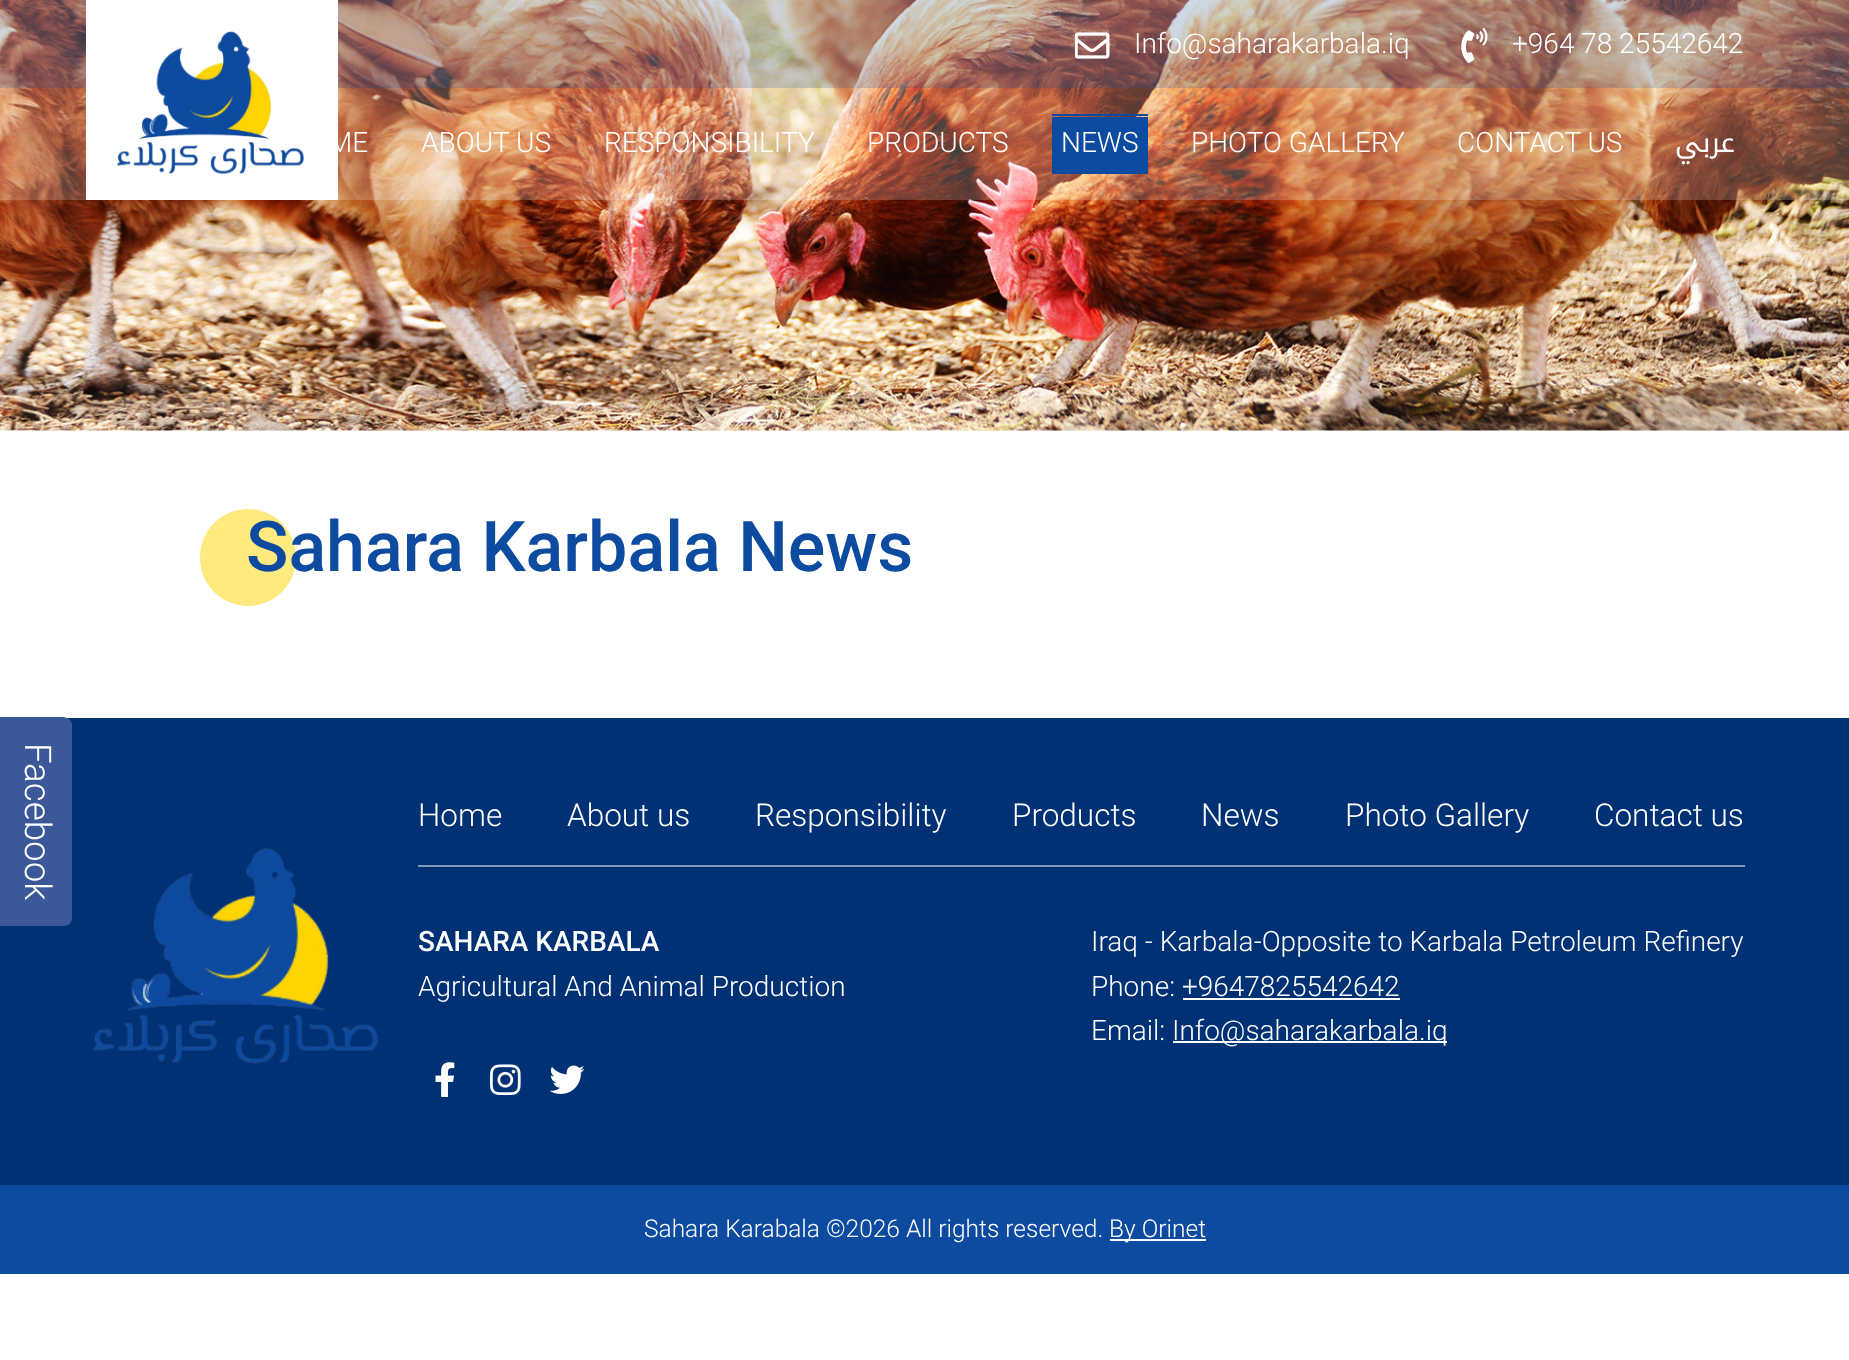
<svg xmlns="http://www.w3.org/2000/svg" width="1849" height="1360">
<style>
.a{font:300 28px Roboto;fill:#fff}
.b{font:28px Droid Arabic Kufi;direction:rtl;fill:#fff}
.c{font:500 70px Roboto;fill:#0d4ba0}
.d{font:300 36.75px Roboto;fill:#fff}
.e{font:500 28px Roboto;fill:#fff}
.f{font:300 31.5px Roboto;fill:#fff}
.g{font:300 24.5px Roboto;fill:#fff}
</style>
<rect width="100%" height="100%" fill="#fff"/>
<image href="4.png" x="0" y="0" width="1849" height="431"/>
<path fill="#ffffff33" d="M0 0h1849v200H0z"/>
<path fill="#0d4ba033" d="M0 0h1849v88H0z"/>
<path fill="#fff" d="M86 0h252v200H86z"/>
<image href="1.png" x="117" y="31" width="188" height="144"/>
<image href="2.png" x="1075" y="32" width="35" height="27"/>
<image href="3.png" x="1461" y="28" width="27" height="35"/>
<path fill="#0d4ba0" d="M1052 114h96v2H1052z"/>
<path fill="#0d4ba0" d="M1052 117h96v57H1052z"/>
<rect fill="#ffea80" x="200" y="509" width="96" height="97" rx="48"/>
<path fill="#003174" d="M0 718h1849v467H0z"/>
<path fill="#3b5998" d="M72 725v193c0 5-4 8-9 8h-63v-209h63c5 0 9 4 9 8z"/>
<image href="5.png" x="435" y="1062" width="20" height="35"/>
<image href="6.png" x="490" y="1064" width="31" height="32"/>
<image href="7.png" x="550" y="1065" width="35" height="29"/>
<path fill="#fff" d="M1183 998h217v2H1183z"/>
<path fill="#fff" d="M1173 1041h274v2H1173z"/>
<path fill="#8098ba" d="M418 865h1327v2H418z"/>
<image href="8.png" x="93" y="848" width="285" height="216"/>
<path fill="#0d4ba0" d="M0 1185h1849v89H0z"/>
<path fill="#fff" d="M1110 1239h96v2H1110z"/>
<text class="a" x="1134" y="53">Info@saharakarbala.iq</text>
<text class="a" x="1512" y="53">+964 78 25542642</text>
<text class="a" x="328" y="152">ME</text>
<text class="a" x="421" y="152">ABOUT US</text>
<text class="a" x="604" y="152">RESPONSIBILITY</text>
<text class="a" x="867" y="152">PRODUCTS</text>
<text class="a" x="1061" y="152">NEWS</text>
<text class="a" x="1191" y="152">PHOTO GALLERY</text>
<text class="a" x="1457" y="152">CONTACT US</text>
<text class="b" x="1735" y="152">عربي</text>
<text class="c" x="246" y="571">Sahara Karbala News</text>
<text class="d" x="25" y="743" transform="rotate(90 25 743)">Facebook</text>
<text class="e" x="418" y="951">SAHARA KARBALA</text>
<text class="a" x="418" y="996">Agricultural And Animal Production</text>
<text class="a" x="1091" y="951">Iraq - Karbala-Opposite to Karbala Petroleum Refinery</text>
<text class="a" x="1091" y="996">Phone: +9647825542642</text>
<text class="a" x="1091" y="1040">Email:</text>
<text class="a" x="1172" y="1040">Info@saharakarbala.iq</text>
<text class="f" x="418" y="826">Home</text>
<text class="f" x="567" y="826">About us</text>
<text class="f" x="755" y="826">Responsibility</text>
<text class="f" x="1012" y="826">Products</text>
<text class="f" x="1201" y="826">News</text>
<text class="f" x="1345" y="826">Photo Gallery</text>
<text class="f" x="1594" y="826">Contact us</text>
<text class="g" x="644" y="1237">Sahara Karabala ©2026 All rights reserved.</text>
<text class="g" x="1109" y="1237">By Orinet</text>
</svg>
